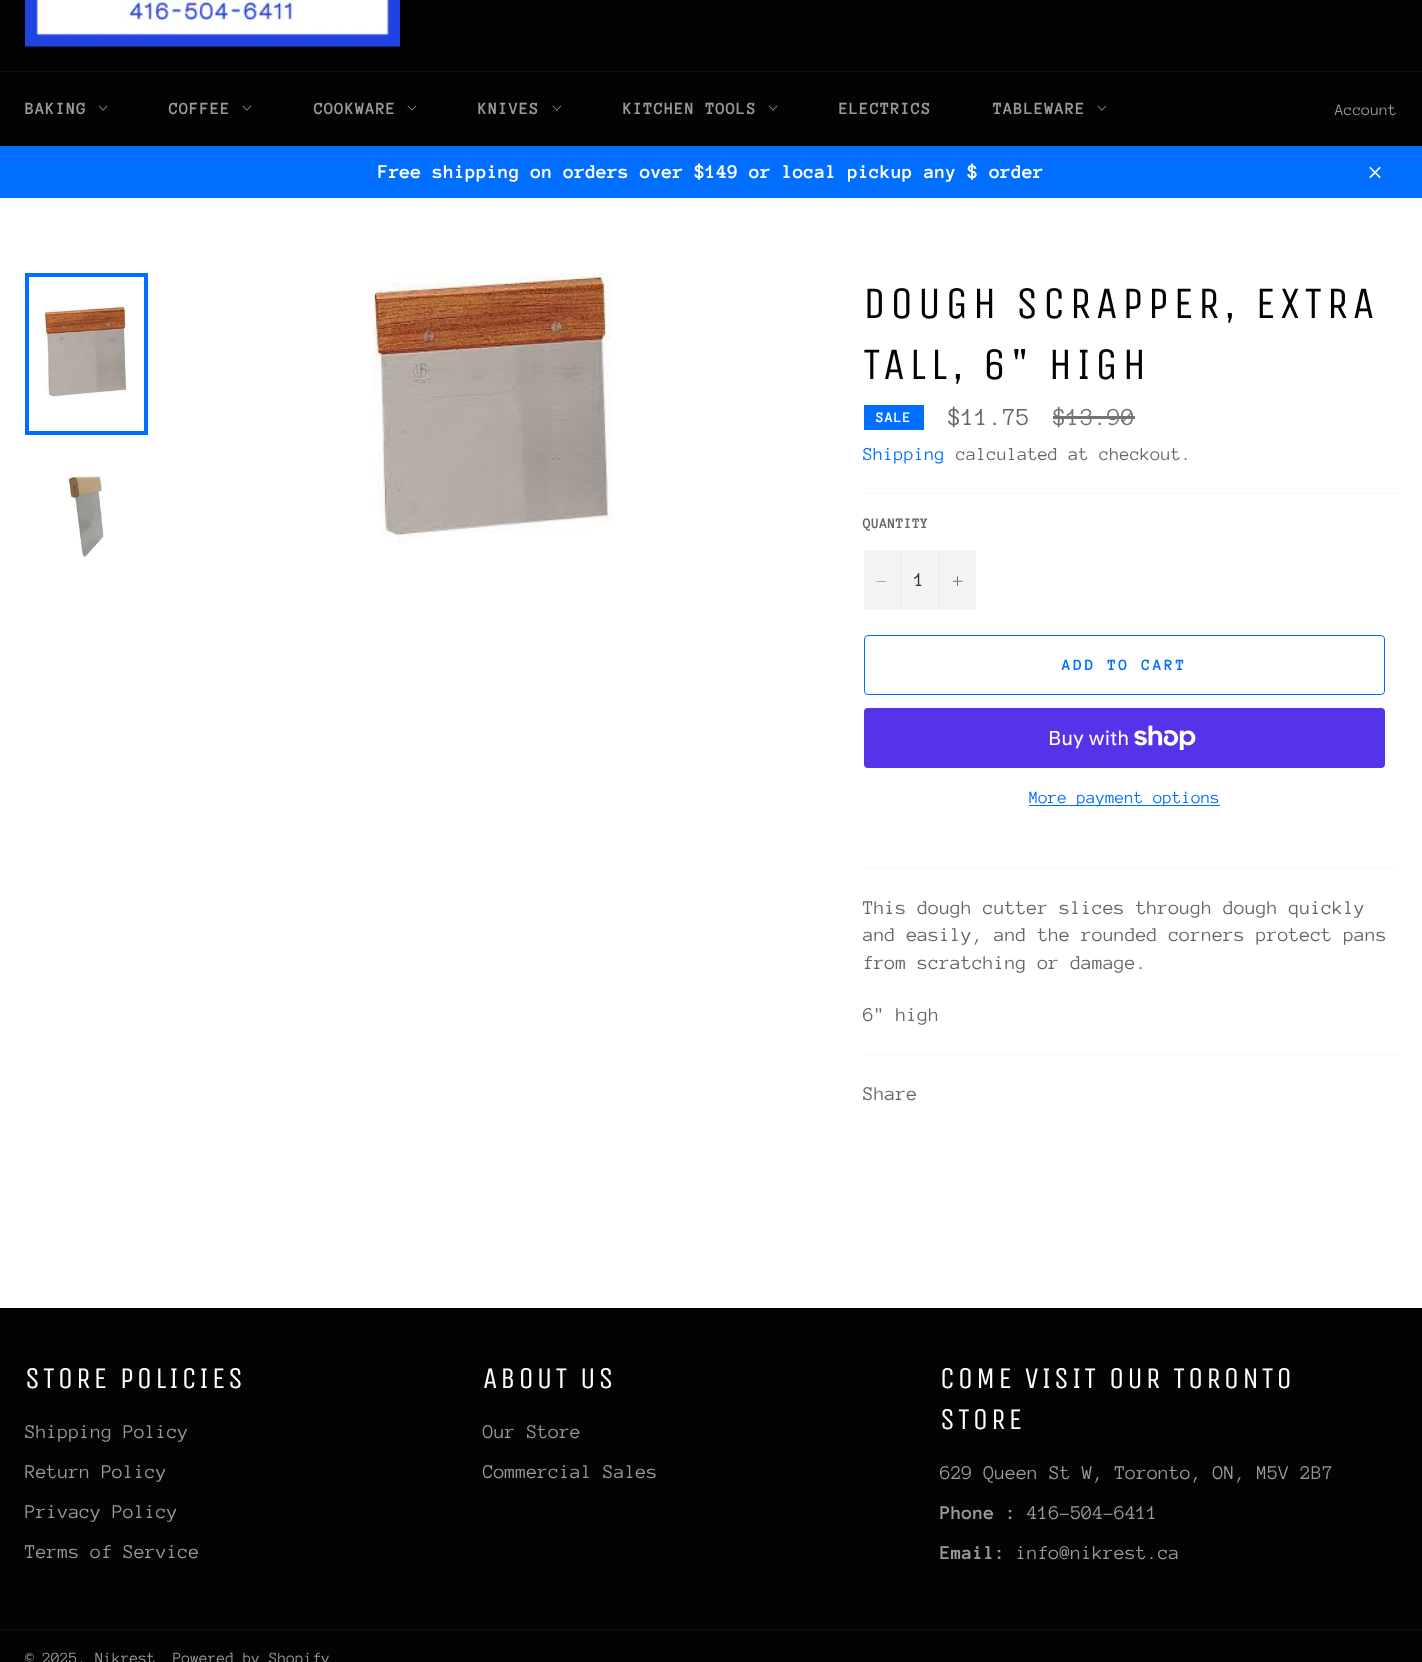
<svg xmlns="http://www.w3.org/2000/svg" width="1422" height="1662">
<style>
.a{font:bold 17.5px Anonymous Pro;letter-spacing:0.75px;fill:#9a9a9a}
.b{font:16.25px Anonymous Pro;fill:#9a9a9a}
.c{font:bold 20px Anonymous Pro;fill:#fff}
.d{font:45px Unica One;letter-spacing:4.5px;fill:#030303}
.e{font:bold 15px Anonymous Pro;letter-spacing:0.75px;fill:#fff}
.f{font:25px Anonymous Pro;fill:#666}
.g{font:25px Anonymous Pro;fill:#737373}
.h{font:18.75px Anonymous Pro;fill:#006eff}
.i{font:18.75px Anonymous Pro;fill:#666}
.j{font:bold 15px Anonymous Pro;fill:#666}
.k{font:20px Anonymous Pro;fill:#333}
.l{font:bold 16.25px Anonymous Pro;letter-spacing:2.5px;fill:#006eff}
.m{font:20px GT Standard;fill:#fff}
.n{font:17.5px Anonymous Pro;fill:#006eff}
.o{font:20px Anonymous Pro;fill:#666}
.p{font:30px Unica One;letter-spacing:3px;fill:#fff}
.q{font:20px Anonymous Pro;fill:#9a9a9a}
.r{font:bold 20px Anonymous Pro;fill:#9a9a9a}
.s{font:16px Anonymous Pro;fill:#9a9a9a}
</style>
<rect width="100%" height="100%" fill="#030303"/>
<image href="1.png" x="25" y="0" width="375" height="47"/>
<path fill="#101010" d="M0 71h1422v1H0z"/>
<image href="2.png" x="98" y="105" width="10" height="6"/>
<image href="3.png" x="242" y="105" width="10" height="6"/>
<image href="3.png" x="407" y="105" width="10" height="6"/>
<image href="3.png" x="552" y="105" width="10" height="6"/>
<image href="2.png" x="768" y="105" width="10" height="6"/>
<image href="3.png" x="1097" y="105" width="10" height="6"/>
<path fill="#006eff" d="M0 146h1422v52H0z"/>
<image href="4.png" x="1369" y="166" width="12" height="13"/>
<path fill="#fff" d="M0 198h1422v1110H0z"/>
<image href="5.png" x="44" y="305" width="84" height="94"/>
<path fill="none" stroke="#006eff" stroke-width="4" d="M27 275h119v158H27z"/>
<image href="6.png" x="67" y="475" width="37" height="83"/>
<image href="7.png" x="372" y="273" width="241" height="270"/>
<path fill="#006eff" d="M864 405h60v25H864z"/>
<path fill="#737373" d="M1053 416h82v3H1053z"/>
<path fill="#f7f7f7" d="M864 493h534v1H864z"/>
<path fill="#f4f4f4" d="M864 550h112v60H864z"/>
<path fill="#e7e7e7" d="M900 550h1v60H900z"/>
<path fill="#666" fill-rule="evenodd" d="M886 581v.5h-9.5v-.5z"/>
<path fill="#e7e7e7" d="M939 550h1v60H939z"/>
<image href="8.png" x="953" y="576" width="10" height="10"/>
<rect fill="none" stroke="#006eff" x="864.5" y="635.5" width="520" height="59" rx="3.5"/>
<rect fill="#5433eb" x="864" y="708" width="521" height="60" rx="4"/>
<image href="9.png" x="1134" y="725" width="62" height="25"/>
<path fill="#006eff" d="M1029 805h191v1H1029z"/>
<path fill="#f7f7f7" d="M864 868h534v1H864z"/>
<path fill="#f7f7f7" d="M864 1054h534v1H864z"/>
<path fill="#101010" d="M0 1629h1422v1H0z"/>
<text class="a" x="25" y="114">BAKING</text>
<text class="a" x="169" y="114">COFFEE</text>
<text class="a" x="314" y="114">COOKWARE</text>
<text class="a" x="478" y="114">KNIVES</text>
<text class="a" x="623" y="114">KITCHEN TOOLS</text>
<text class="a" x="839" y="114">ELECTRICS</text>
<text class="a" x="993" y="114">TABLEWARE</text>
<text class="b" x="1335" y="115">Account</text>
<text class="c" x="378" y="178">Free shipping on orders over $149 or local pickup any $ order</text>
<text class="d" x="863" y="318">DOUGH SCRAPPER, EXTRA</text>
<text class="d" x="863" y="379">TALL, 6" HIGH</text>
<text class="e" x="876" y="422">SALE</text>
<text class="f" x="948" y="425">$11.75</text>
<text class="g" x="1053" y="425">$13.90</text>
<text class="h" x="863" y="460">Shipping</text>
<text class="i" x="956" y="460">calculated at checkout.</text>
<text class="j" x="863" y="528">QUANTITY</text>
<text class="k" x="914" y="586">1</text>
<text class="l" x="1062" y="670">ADD TO CART</text>
<text class="m" x="1048" y="745">Buy with</text>
<text class="n" x="1029" y="803">More payment options</text>
<text class="o" x="863" y="914">This dough cutter slices through dough quickly</text>
<text class="o" x="863" y="941">and easily, and the rounded corners protect pans</text>
<text class="o" x="863" y="969">from scratching or damage.</text>
<text class="o" x="863" y="1021">6" high</text>
<text class="o" x="863" y="1100">Share</text>
<text class="p" x="25" y="1388">STORE POLICIES</text>
<text class="q" x="25" y="1438">Shipping Policy</text>
<text class="q" x="25" y="1478">Return Policy</text>
<text class="q" x="25" y="1518">Privacy Policy</text>
<text class="q" x="25" y="1558">Terms of Service</text>
<text class="p" x="483" y="1388">ABOUT US</text>
<text class="q" x="483" y="1438">Our Store</text>
<text class="q" x="483" y="1478">Commercial Sales</text>
<text class="p" x="940" y="1388">COME VISIT OUR TORONTO</text>
<text class="p" x="940" y="1429">STORE</text>
<text class="q" x="940" y="1479">629 Queen St W, Toronto, ON, M5V 2B7</text>
<text class="r" x="940" y="1519">Phone :</text>
<text class="q" x="1027" y="1519">416-504-6411</text>
<text class="r" x="940" y="1559">Email:</text>
<text class="q" x="1016" y="1559">info@nikrest.ca</text>
<text class="s" x="25" y="1663">© 2025, Nikrest</text>
<text class="s" x="173" y="1663">Powered by Shopify</text>
</svg>
